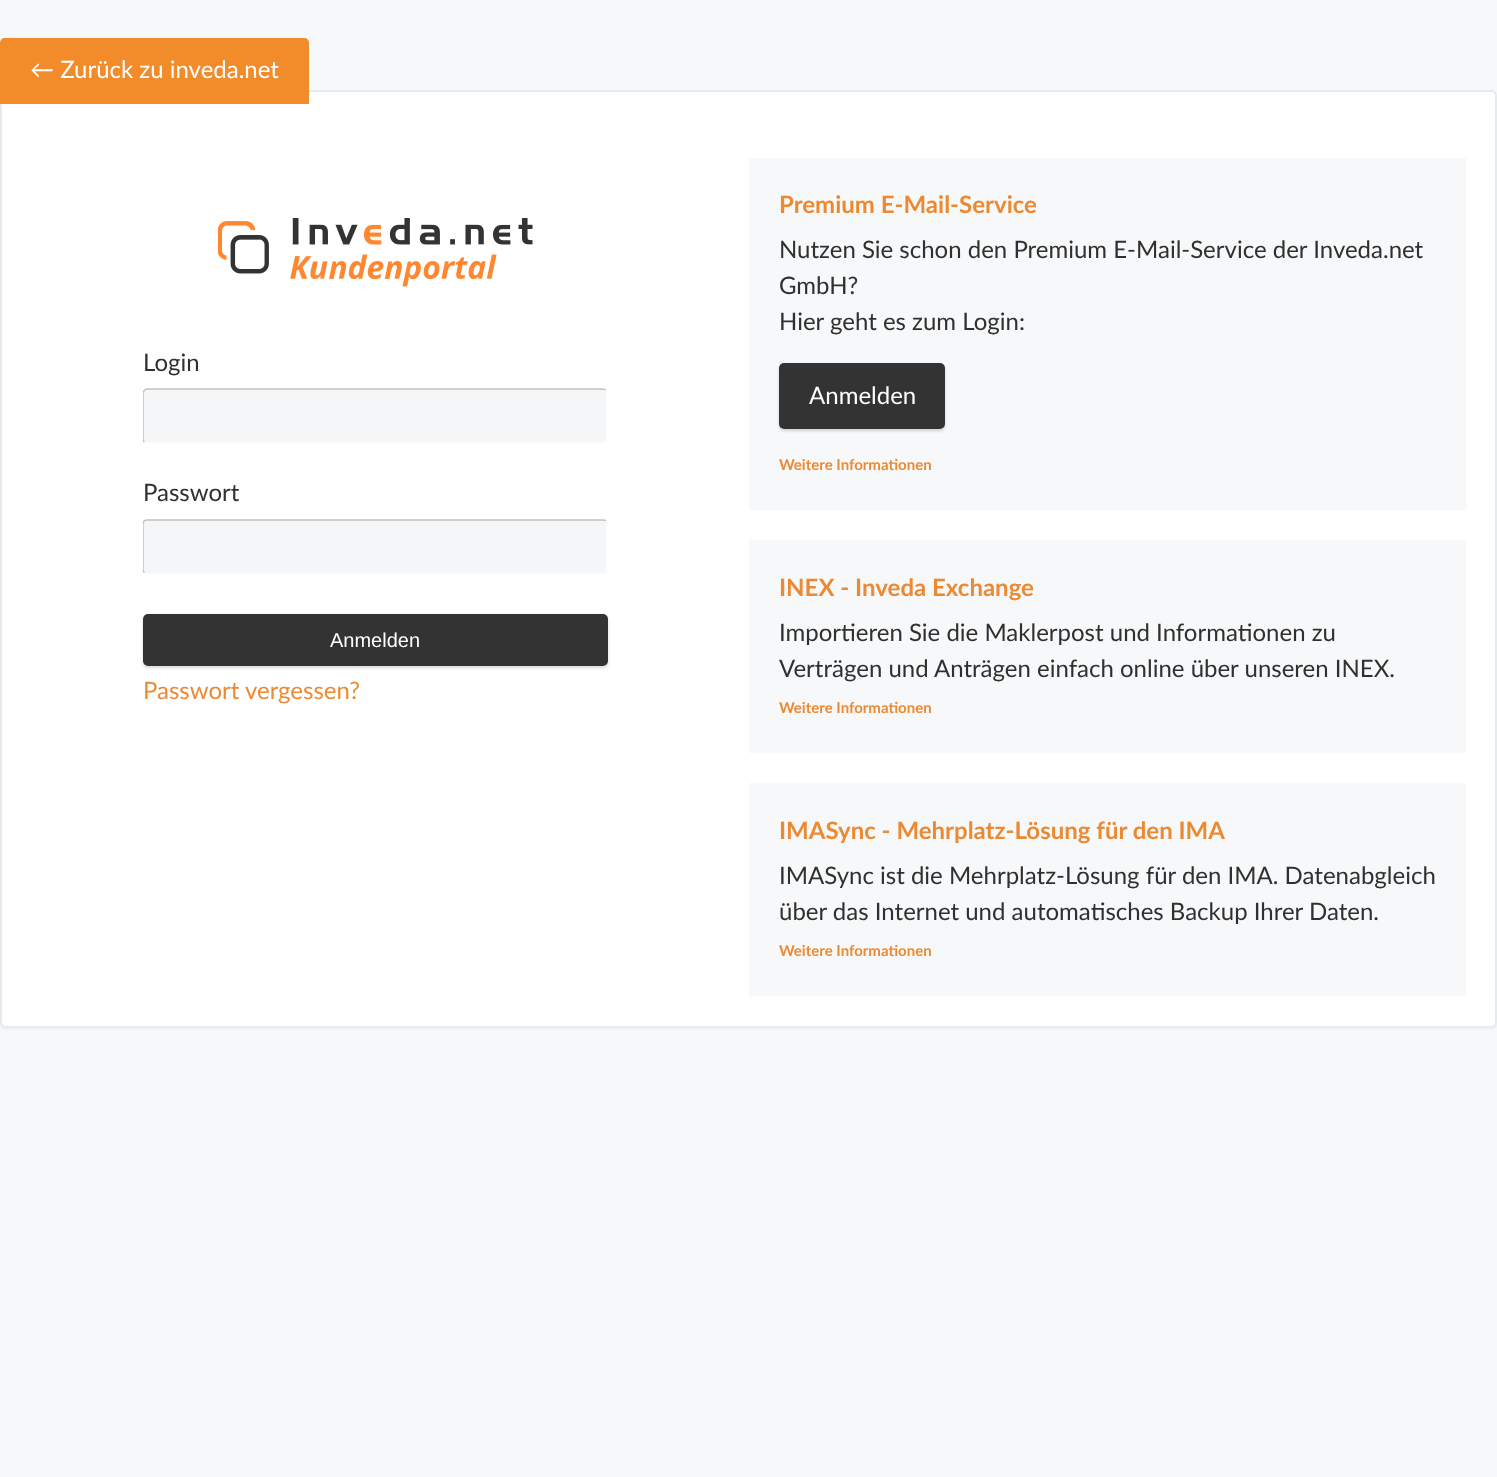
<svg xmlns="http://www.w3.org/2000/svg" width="1497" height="1477">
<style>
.a{font:24px Lato;fill:#fff}
.b{font:24px Lato;fill:#303030}
.c{font:20px Liberation Sans;fill:#fff}
.d{font:24px Lato;fill:#ec8a33}
.e{font:bold 24px Lato;fill:#ec8a33}
.f{font:bold 15px Lato;fill:#ec8a33}
</style>
<defs>
<clipPath id="clip1"><path d="M143 345h465v372H143z"/></clipPath>
<clipPath id="clip2"><path d="M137 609h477v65h-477zm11 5h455c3 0 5 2 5 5v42c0 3-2 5-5 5h-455c-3 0-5-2-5-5v-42c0-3 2-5 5-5z" clip-rule="evenodd"/></clipPath>
<clipPath id="clip3"><path d="M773 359h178v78h-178zm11 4h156c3 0 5 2 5 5v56c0 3-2 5-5 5h-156c-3 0-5-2-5-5v-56c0-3 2-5 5-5z" clip-rule="evenodd"/></clipPath>
</defs>
<rect width="100%" height="100%" fill="#f7f8f9"/>
<rect fill="#0000000d" filter="blur(1px)" y="92" width="1497" height="937" rx="6"/>
<rect fill="#fff" stroke="#e6ebed" stroke-width="2" x="1" y="91" width="1495" height="936" rx="5"/>
<path fill="#f28c2a" d="M5 38h299c3 0 5 2 5 5v61h-309v-61c0-3 2-5 5-5z"/>
<image href="1.png" x="218" y="218" width="315" height="69"/>
<rect fill="#f4f6f7" x="143" y="389" width="465" height="55" rx="5"/>
<path fill="none" stroke="#fff" stroke-width="1.5" d="M605.5 390.5c1 .5 1.5 1.5 1.5 2.5v46.5c0 1-.5 2-1.5 2.5c-.5 1-1.5 1-2.5 1h-456c-1 0-2 0-2.5-1"/>
<g clip-path="url(#clip1)">
<path fill="none" stroke="#c2c2c2" stroke-width="1.5" d="M144.5 442c-1-.5-1.5-1.5-1.5-2.5v-46.5c0-1 .5-2 1.5-2.5c.5-1 1.5-1.5 2.5-1.5h456c1 0 2 .5 2.5 1.5"/>
</g>
<rect fill="#f4f6f7" x="143" y="519" width="465" height="56" rx="5"/>
<path fill="none" stroke="#fff" stroke-width="1.5" d="M605.5 521c1 .5 1.5 1.5 1.5 2.5v46.5c0 1-.5 2-1.5 2.5c-.5 1-1.5 1.5-2.5 1.5h-456c-1 0-2-.5-2.5-1.5"/>
<g clip-path="url(#clip1)">
<path fill="none" stroke="#c2c2c2" stroke-width="1.5" d="M144.5 572.5c-1-.5-1.5-1.5-1.5-2.5v-46.5c0-1 .5-2 1.5-2.5c.5-1 1.5-1 2.5-1h456c1 0 2 0 2.5 1"/>
</g>
<g clip-path="url(#clip2)">
<rect fill="#00000026" filter="blur(1.5px)" x="143" y="615" width="465" height="53" rx="5"/>
</g>
<rect fill="#333" x="143" y="614" width="465" height="52" rx="5"/>
<path fill="#f7f8f9" d="M749 158h717v352H749z"/>
<g clip-path="url(#clip3)">
<rect fill="#00000026" filter="blur(1.5px)" x="779" y="365" width="166" height="66" rx="5"/>
</g>
<rect fill="#333" x="779" y="363" width="166" height="66" rx="5"/>
<path fill="#f7f8f9" d="M749 540h717v213H749z"/>
<path fill="#f7f8f9" d="M749 783h717v213H749z"/>
<text class="a" x="30" y="78">← Zurück zu inveda.net</text>
<text class="b" x="143" y="371">Login</text>
<text class="b" x="143" y="501">Passwort</text>
<text class="c" x="330" y="647">Anmelden</text>
<text class="d" x="143" y="699">Passwort vergessen?</text>
<text class="e" x="779" y="213">Premium E-Mail-Service</text>
<text class="b" x="779" y="258">Nutzen Sie schon den Premium E-Mail-Service der Inveda.net</text>
<text class="b" x="779" y="294">GmbH?</text>
<text class="b" x="779" y="330">Hier geht es zum Login:</text>
<text class="a" x="809" y="404">Anmelden</text>
<text class="f" x="779" y="470">Weitere Informationen</text>
<text class="e" x="779" y="596">INEX - Inveda Exchange</text>
<text class="b" x="779" y="641">Importieren Sie die Maklerpost und Informationen zu</text>
<text class="b" x="779" y="677">Verträgen und Anträgen einfach online über unseren INEX.</text>
<text class="f" x="779" y="713">Weitere Informationen</text>
<text class="e" x="779" y="839">IMASync - Mehrplatz-Lösung für den IMA</text>
<text class="b" x="779" y="884">IMASync ist die Mehrplatz-Lösung für den IMA. Datenabgleich</text>
<text class="b" x="779" y="920">über das Internet und automatisches Backup Ihrer Daten.</text>
<text class="f" x="779" y="956">Weitere Informationen</text>
</svg>
